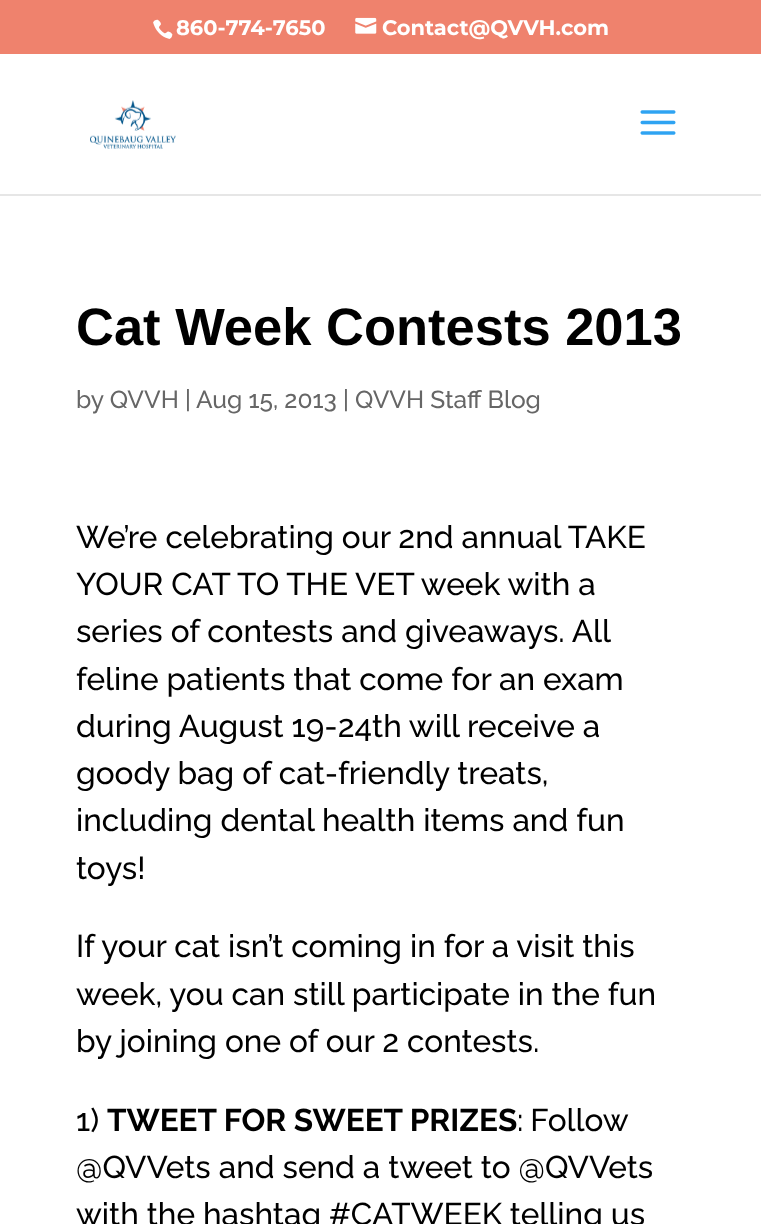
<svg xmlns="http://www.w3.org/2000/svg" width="761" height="1224">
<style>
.a{font:bold 21px Montserrat;fill:#fff}
.b{font:bold 52.5px Liberation Sans;fill:#000}
.c{font:500 24.5px Raleway;fill:#666}
.d{font:500 31.5px Raleway;fill:#000}
.e{font:bold 31.5px Raleway;fill:#000}
</style>
<rect width="100%" height="100%" fill="#fff"/>
<path fill="#ef826d" d="M0 0h761v54H0z"/>
<image href="1.png" x="153" y="19" width="20" height="20"/>
<image href="2.png" x="355" y="17" width="22" height="17"/>
<path fill="#e6e6e6" d="M0 194h761v2H0z"/>
<image href="3.png" x="90" y="100" width="86" height="49"/>
<image href="4.png" x="640" y="110" width="36" height="25"/>
<text class="a" x="176" y="35">860-774-7650</text>
<text class="a" x="382" y="35">Contact@QVVH.com</text>
<text class="b" x="76" y="345">Cat Week Contests 2013</text>
<text class="c" x="76" y="408">by QVVH</text>
<text class="c" x="185" y="408">|</text>
<text class="c" x="196" y="408">Aug 15, 2013 | QVVH Staff Blog</text>
<text class="d" x="76" y="548">We’re celebrating our 2nd annual TAKE</text>
<text class="d" x="76" y="595">YOUR CAT TO THE VET week with a</text>
<text class="d" x="76" y="642">series of contests and giveaways. All</text>
<text class="d" x="76" y="690">feline patients that come for an exam</text>
<text class="d" x="76" y="737">during August 19-24th will receive a</text>
<text class="d" x="76" y="784">goody bag of cat-friendly treats,</text>
<text class="d" x="76" y="831">including dental health items and fun</text>
<text class="d" x="76" y="879">toys!</text>
<text class="d" x="76" y="957">If your cat isn’t coming in for a visit this</text>
<text class="d" x="76" y="1005">week, you can still participate in the fun</text>
<text class="d" x="76" y="1052">by joining one of our 2 contests.</text>
<text class="d" x="76" y="1131">1)</text>
<text class="e" x="107" y="1131">TWEET FOR SWEET PRIZES</text>
<text class="d" x="517" y="1131" word-spacing="-1">: Follow</text>
<text class="d" x="76" y="1178">@QVVets and send a tweet to @QVVets</text>
<text class="d" x="76" y="1225">with the hashtag #CATWEEK telling us</text>
</svg>
